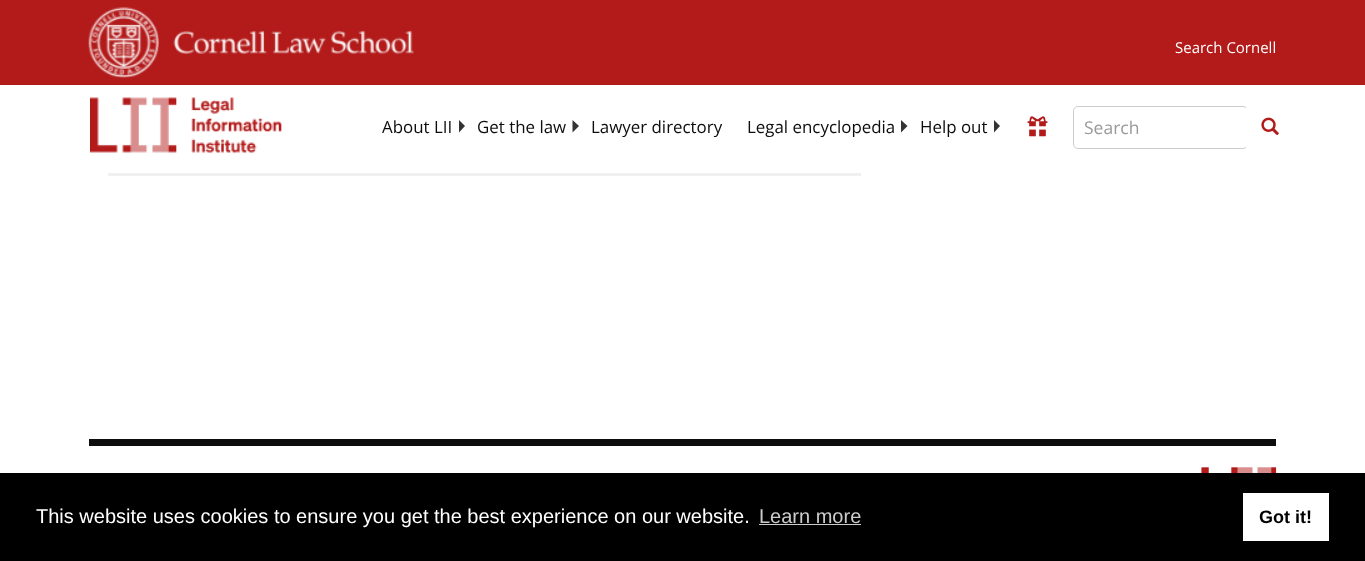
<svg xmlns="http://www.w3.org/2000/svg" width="1365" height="561">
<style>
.a{font:15px Open Sans;fill:#fff}
.b{font:16.9px Open Sans;fill:#0e0d0e}
.c{font:17.5px Open Sans;fill:#999}
.d{font:20px Liberation Sans;fill:#fff}
.e{font:20px Liberation Sans;fill:#ccc}
.f{font:bold 18px Liberation Sans;fill:#000}
</style>
<rect width="100%" height="100%" fill="#fff"/>
<path fill="#b31b1b" d="M0 0h1365v85H0z"/>
<image href="1.png" x="88" y="7" width="71" height="71"/>
<image href="2.png" x="173" y="30" width="241" height="24"/>
<image href="3.png" x="90" y="97" width="192" height="56"/>
<path fill="#333" d="M459 132.5v-12.5l6 6z"/>
<path fill="#333" d="M572.5 132.5v-12.5l6.5 6z"/>
<path fill="#333" d="M901 132.5v-12.5l6.5 6z"/>
<path fill="#333" d="M994 132.5v-12.5l6 6z"/>
<image href="4.png" x="1027" y="116" width="21" height="21"/>
<rect fill="none" stroke="#ccc" x="1073.5" y="106.5" width="174" height="42" rx="4.5"/>
<path fill="#fff" d="M1246 108h43c3 0 5 2 5 5v30c0 3-2 5-5 5h-43z"/>
<image href="5.png" x="1261" y="117" width="18" height="18"/>
<path fill="#f0f0f0" d="M108 173h753v3H108z"/>
<path fill="#0e0d0e" d="M89 439h1187v7H89z"/>
<image href="6.png" x="1201" y="467" width="76" height="6"/>
<path fill="#000" d="M0 473h1365v88H0z"/>
<path fill="#ccc" d="M759 524h102v1H759z"/>
<path fill="#fff" d="M1243 493h86v48H1243z"/>
<text class="a" x="1175" y="53">Search Cornell</text>
<text class="b" x="382" y="133">About LII</text>
<text class="b" x="477" y="133">Get the law</text>
<text class="b" x="591" y="133">Lawyer directory</text>
<text class="b" x="747" y="133">Legal encyclopedia</text>
<text class="b" x="920" y="133">Help out</text>
<text class="c" x="1084" y="134">Search</text>
<text class="d" x="36" y="523">This website uses cookies to ensure you get the best experience on our website.</text>
<text class="e" x="759" y="523">Learn more</text>
<text class="f" x="1259" y="523">Got it!</text>
</svg>
